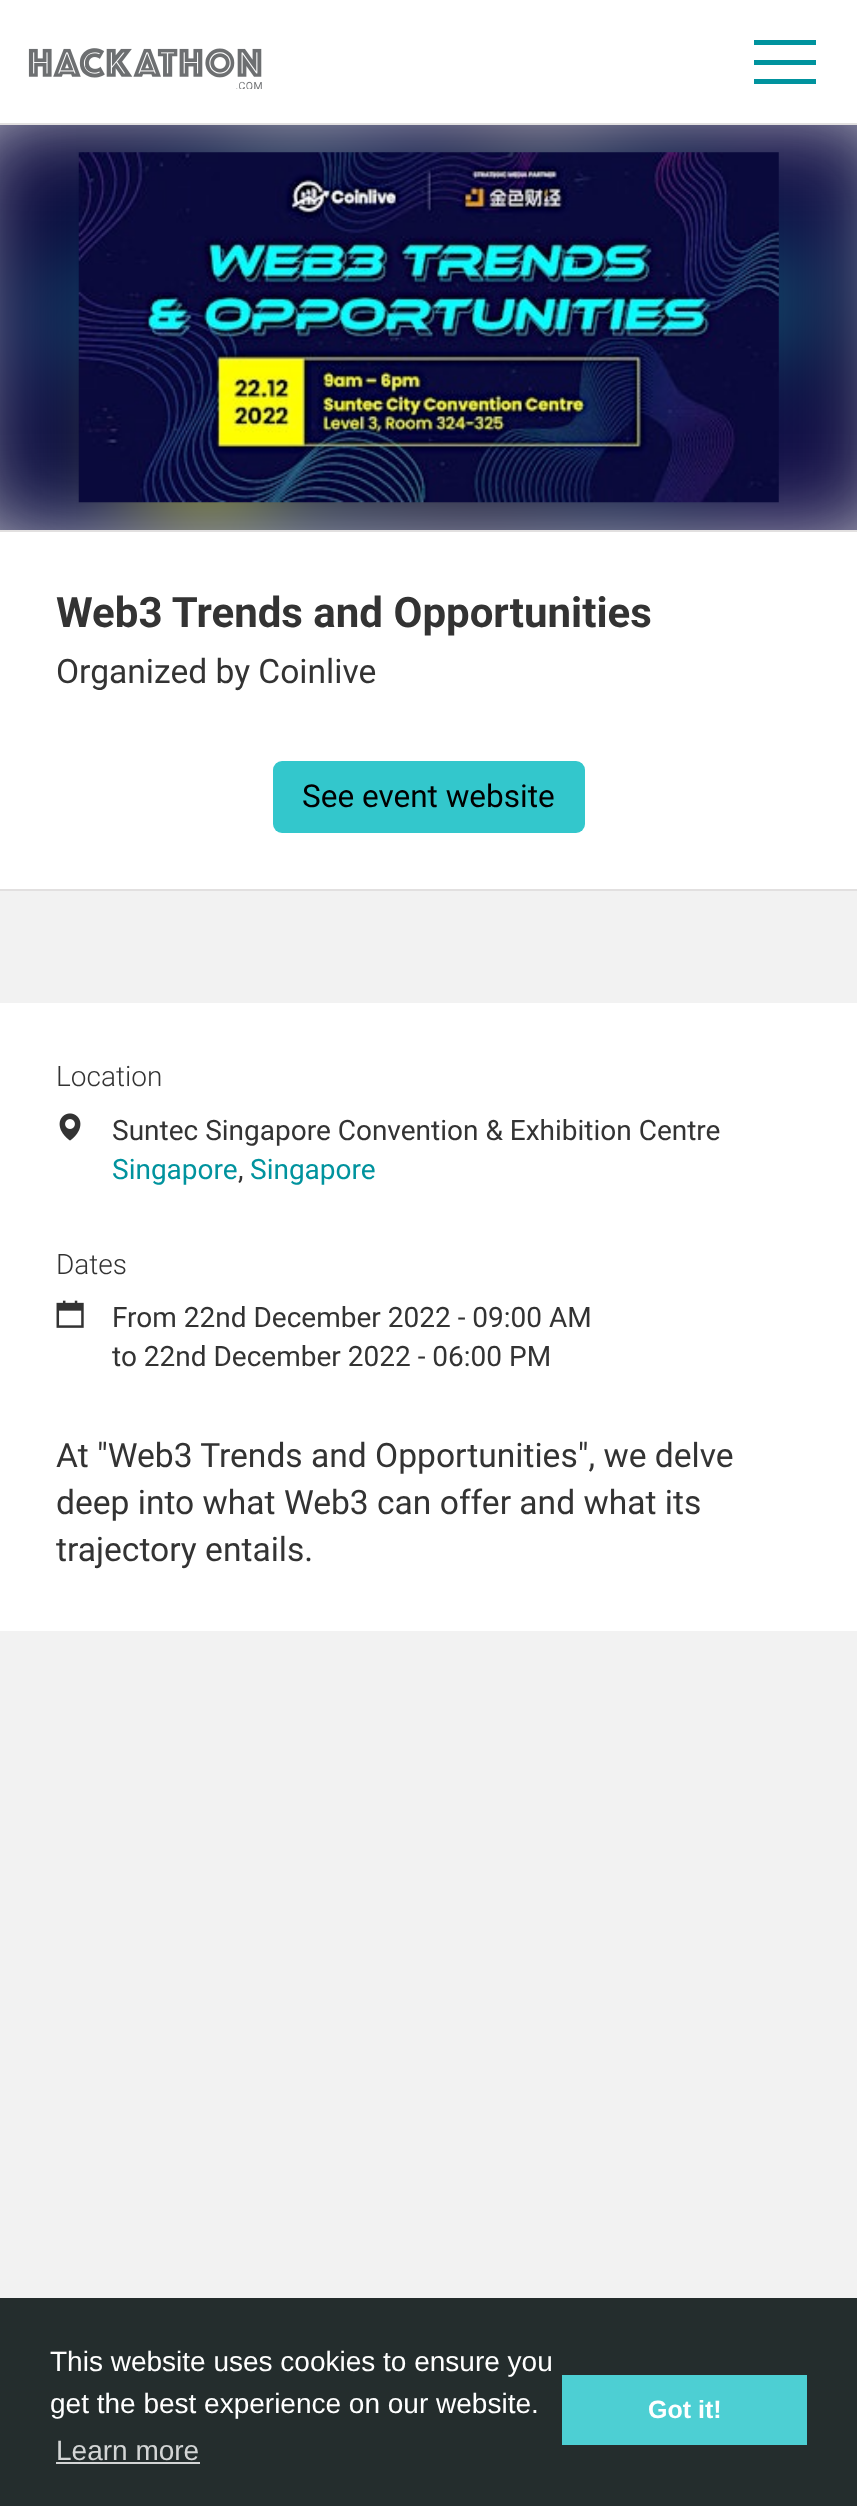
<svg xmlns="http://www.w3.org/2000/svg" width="857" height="2506">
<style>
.a{font:bold 42px Roboto;fill:#333}
.b{font:33.6px Roboto;fill:#333}
.c{font:31.5px Roboto;fill:#000}
.d{font:300 28px Roboto;fill:#333}
.e{font:28px Roboto;fill:#333}
.f{font:28px Roboto;fill:#00939e}
.g{font:28px Liberation Sans;fill:#fff}
.h{font:28px Liberation Sans;fill:#d3d5d5}
.i{font:bold 25px Liberation Sans;fill:#fff}
</style>
<rect width="100%" height="100%" fill="#fff"/>
<path fill="#e2e0e0" d="M0 123h857v2H0z"/>
<image href="1.png" x="28" y="48" width="234" height="41"/>
<path fill="#00939e" d="M754 40h62v5H754z"/>
<path fill="#00939e" d="M754 60h62v5H754z"/>
<path fill="#00939e" d="M754 79h62v5H754z"/>
<path fill="#f2f2f2" d="M0 125h857v2173H0z"/>
<image href="2.png" x="0" y="125" width="857" height="405"/>
<image href="3.png" x="78" y="152" width="701" height="351"/>
<path fill="#fff" d="M0 532h857v357H0z"/>
<path fill="#e2e0e0" d="M0 530h857v2H0z"/>
<path fill="#e2e0e0" d="M0 889h857v2H0z"/>
<rect fill="#33c7cc" x="273" y="761" width="312" height="72" rx="9"/>
<path fill="#fff" d="M0 1003h857v628H0z"/>
<image href="4.png" x="59" y="1113" width="22" height="28"/>
<image href="5.png" x="56" y="1300" width="28" height="28"/>
<path fill="#242d2d" d="M0 2298h857v208H0z"/>
<path fill="#d3d5d5" d="M56 2462h144v2H56z"/>
<path fill="#4dcfd3" d="M562 2375h245v70H562z"/>
<text class="a" x="56" y="627">Web3 Trends and Opportunities</text>
<text class="b" x="56" y="683">Organized by Coinlive</text>
<text class="c" x="302" y="807">See event website</text>
<text class="d" x="56" y="1086">Location</text>
<text class="e" x="112" y="1140">Suntec Singapore Convention &amp; Exhibition Centre</text>
<text class="f" x="112" y="1179">Singapore</text>
<text class="e" x="238" y="1179">,</text>
<text class="f" x="250" y="1179">Singapore</text>
<text class="d" x="56" y="1274">Dates</text>
<text class="e" x="112" y="1327">From 22nd December 2022 - 09:00 AM</text>
<text class="e" x="112" y="1366">to 22nd December 2022 - 06:00 PM</text>
<text class="b" x="56" y="1467">At "Web3 Trends and Opportunities", we delve</text>
<text class="b" x="56" y="1514">deep into what Web3 can offer and what its</text>
<text class="b" x="56" y="1561">trajectory entails.</text>
<text class="g" x="50" y="2371">This website uses cookies to ensure you</text>
<text class="g" x="50" y="2413">get the best experience on our website.</text>
<text class="h" x="56" y="2460">Learn more</text>
<text class="i" x="648" y="2418">Got it!</text>
</svg>
